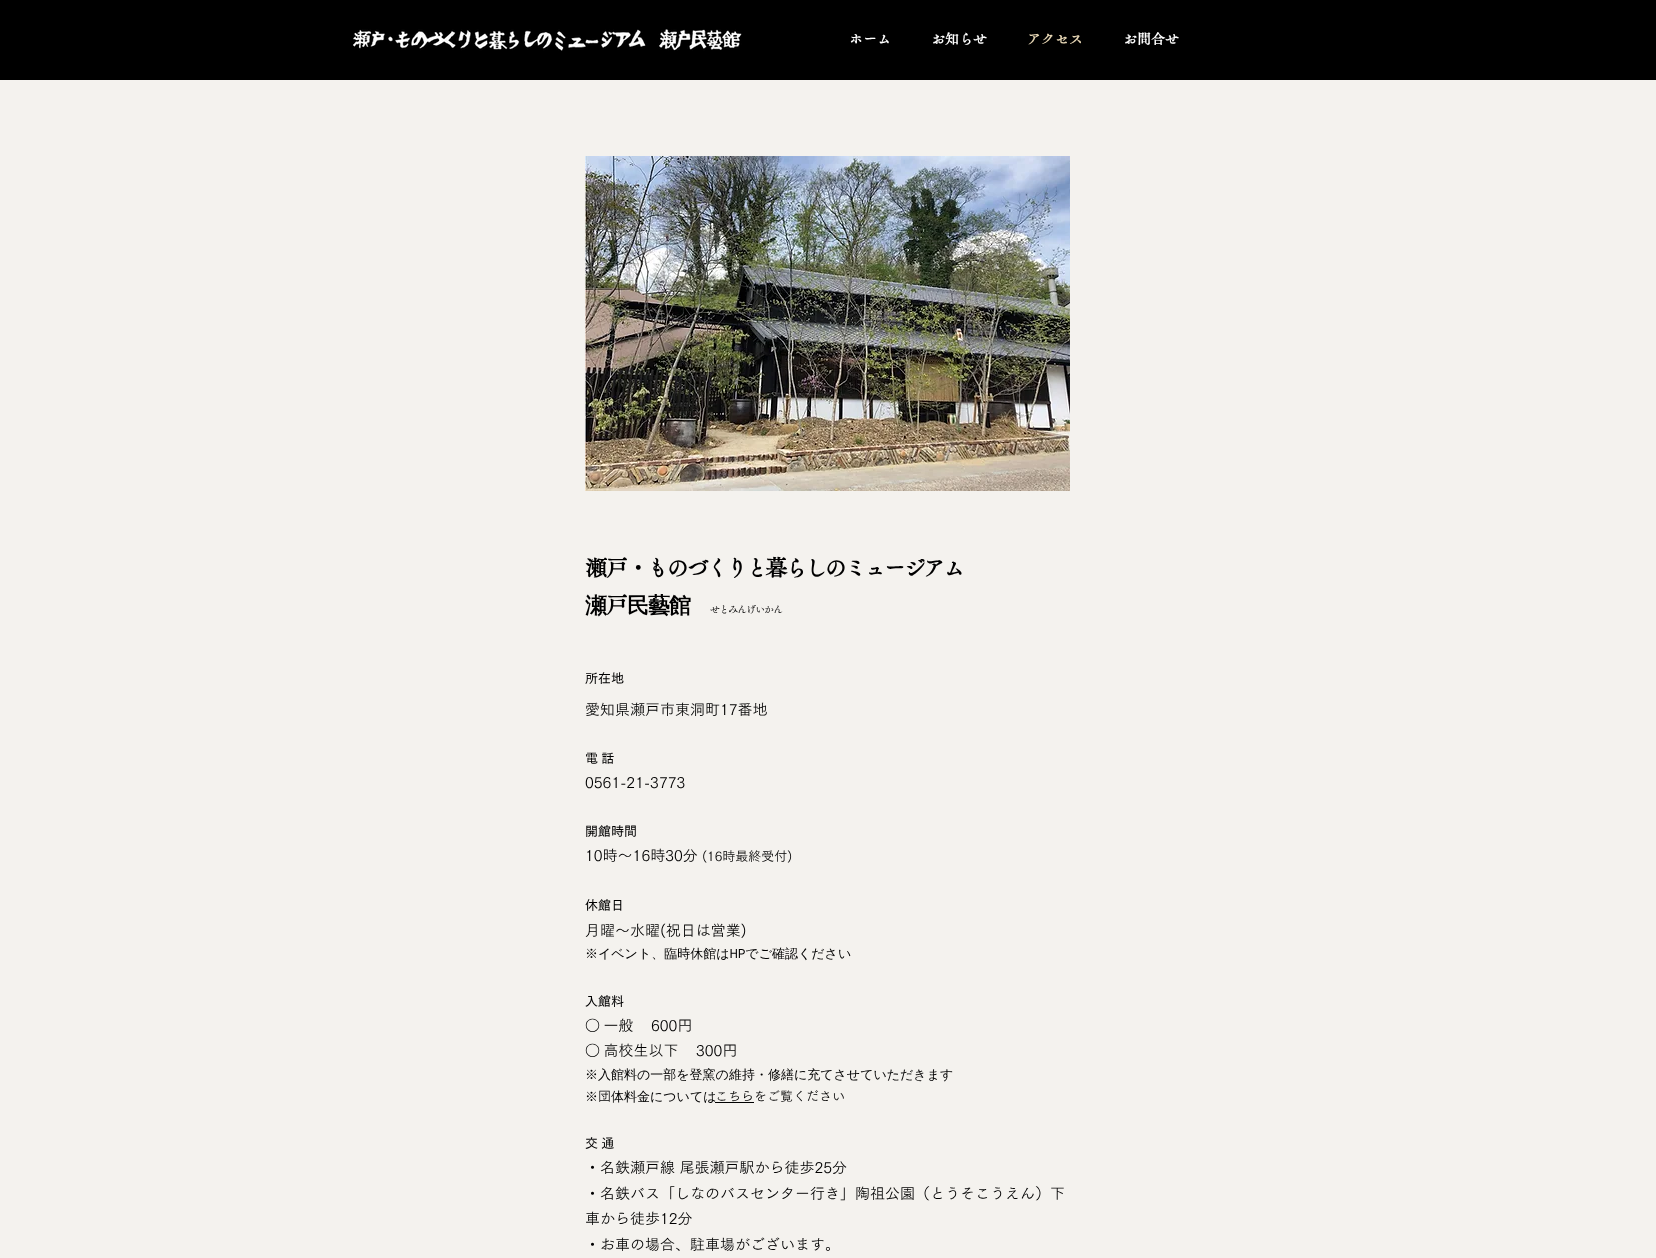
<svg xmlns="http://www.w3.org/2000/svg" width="1656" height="1258">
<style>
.a{font:bold 14px 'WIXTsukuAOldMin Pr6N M';fill:#fff}
.b{font:bold 14px 'WIXTsukuAOldMin Pr6N M';fill:#e4d4b3}
.c{font:bold 22px 'WIXTsukuAOldMin Pr6N M';letter-spacing:-1px;fill:#000}
.d{font:bold 22px 'WIXTsukuAOldMin Pr6N M';letter-spacing:-2.25px;fill:#000}
.e{font:bold 22px WenQuanYi Zen Hei;letter-spacing:-1px;fill:#000}
.f{font:500 10px 'WIXTsukuAOldMin Pr6N M';letter-spacing:-1px;fill:#000}
.g{font:600 13px 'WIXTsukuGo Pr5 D';fill:#000}
.h{font:15px 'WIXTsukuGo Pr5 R';fill:#000}
.i{font:13px 'WIXTsukuGo Pr5 R';fill:#000}
.j{font:500 13px WenQuanYi Zen Hei;fill:#000}
</style>
<rect width="100%" height="100%" fill="#f4f2ee"/>
<path fill="#000" d="M0 0h1656v80H0z"/>
<image href="1.png" x="353" y="29" width="389" height="22"/>
<image href="2.png" x="585" y="156" width="485" height="335"/>
<path fill="#000" d="M715 1102h39v1H715z"/>
<text class="a" x="849" y="44">ホーム</text>
<text class="a" x="931" y="44">お知らせ</text>
<text class="b" x="1027" y="44">アクセス</text>
<text class="a" x="1123" y="44">お問合せ</text>
<text class="c" x="585" y="576">瀬戸</text>
<text class="d" x="627" y="576">・ものづくりと暮らしのミュージアム</text>
<text class="e" x="585" y="613">瀬</text>
<text class="c" x="606" y="613">戸</text>
<text class="e" x="627" y="613">民藝館</text>
<text class="f" x="710" y="613">せとみんげいかん</text>
<text class="g" x="585" y="683">所在地</text>
<text class="h" x="585" y="715">愛知県瀬戸市東洞町17番地</text>
<text class="g" x="585" y="763">電 話</text>
<text class="h" x="585" y="788">0561-21-3773</text>
<text class="g" x="585" y="836">開館時間</text>
<text class="h" x="585" y="861">10時〜16時30分</text>
<text class="i" x="702" y="861">(16時最終受付)</text>
<text class="g" x="585" y="910">休館日</text>
<text class="h" x="585" y="936">月曜〜水曜(祝日は営業)</text>
<text class="j" x="585" y="958">※イベント、臨時休館はHPでご確認ください</text>
<text class="g" x="585" y="1006">入館料</text>
<text class="h" x="585" y="1031" word-spacing="-1">○ 一般</text>
<text class="h" x="651" y="1031" word-spacing="-1">600円</text>
<text class="h" x="585" y="1056" word-spacing="-1">○ 高校生以下</text>
<text class="h" x="696" y="1056" word-spacing="-1">300円</text>
<text class="j" x="585" y="1079">※入館料の一部を登窯の維持・修繕に充てさせていただきます</text>
<text class="j" x="585" y="1101">※</text>
<text class="i" x="598" y="1101">団</text>
<text class="j" x="611" y="1101">体料金については</text>
<text class="i" x="715" y="1101">こちらをご覧ください</text>
<text class="g" x="585" y="1148">交 通</text>
<text class="h" x="585" y="1173">・名鉄瀬戸線 尾張瀬戸駅から徒歩25分</text>
<text class="h" x="585" y="1199">・名鉄バス「しなのバスセンター行き」陶祖公園（とうそこうえん）下</text>
<text class="h" x="585" y="1224">車から徒歩12分</text>
<text class="h" x="585" y="1250">・お車の場合、駐車場がございます。</text>
</svg>
